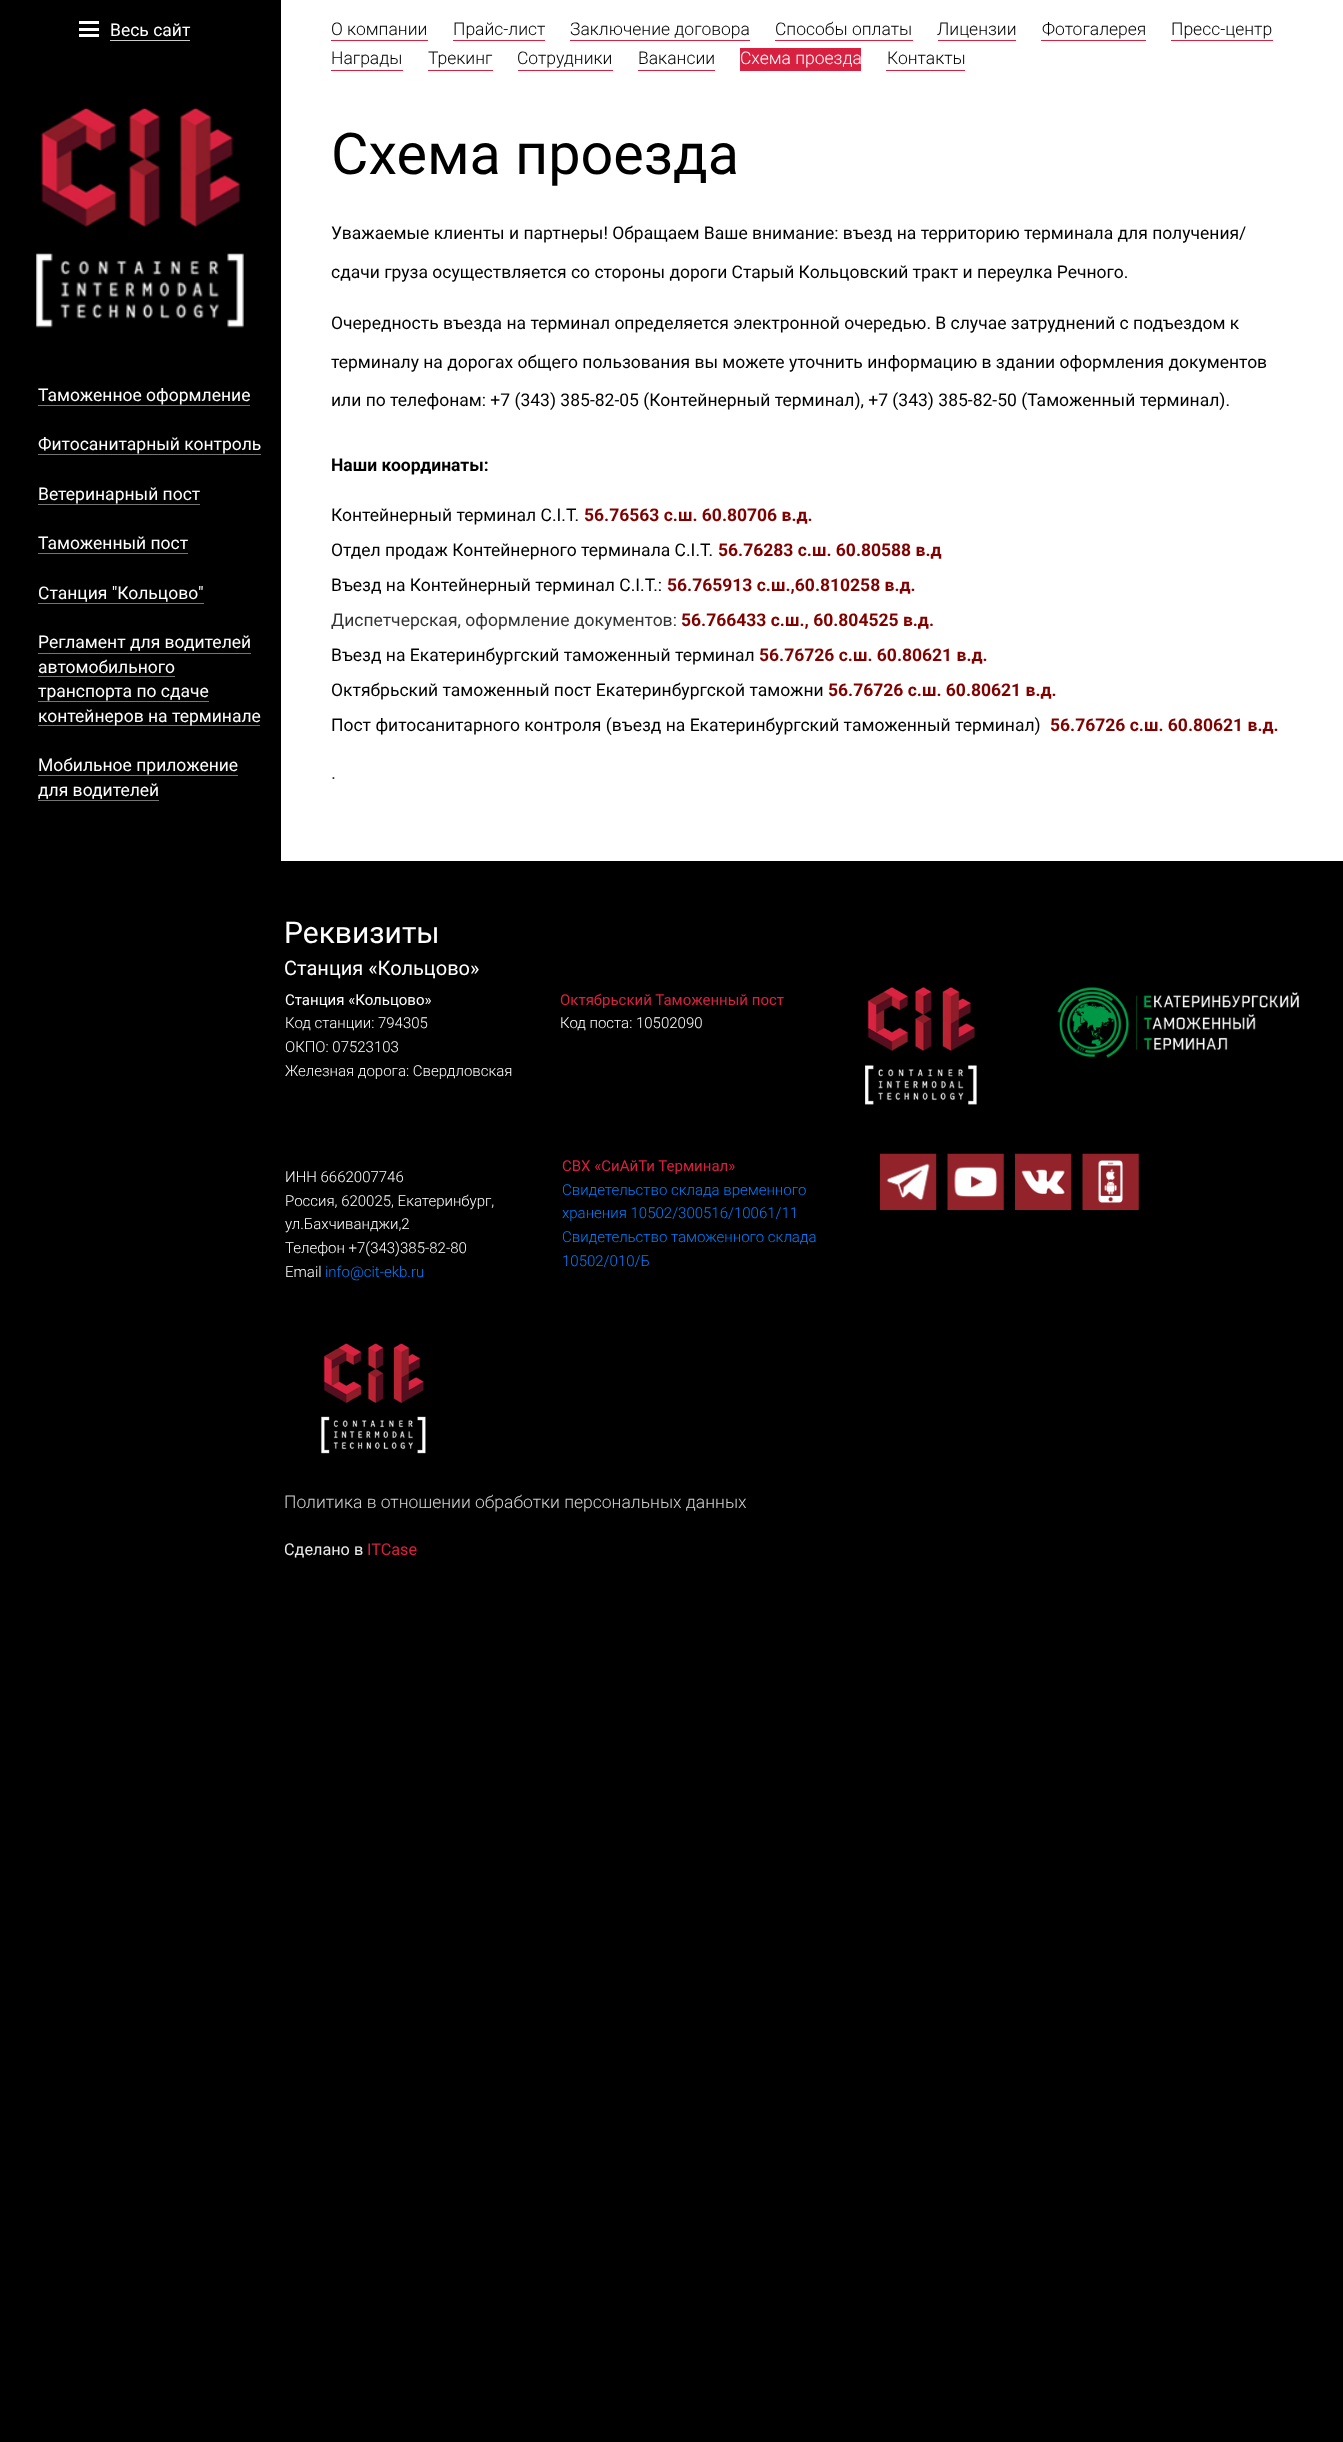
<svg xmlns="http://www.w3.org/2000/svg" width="1343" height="2442">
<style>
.a{font:17.5px Roboto;fill:#fff}
.b{font:300 17.5px Roboto;fill:#000}
.c{font:300 17.5px Roboto;fill:#fff}
.d{font:57.5px Roboto;fill:#000}
.e{font:17.5px Roboto;fill:#000}
.f{font:bold 17.5px Roboto;fill:#000}
.g{font:bold 17.5px Roboto;fill:#800000}
.h{font:17.5px Roboto;fill:#333}
.i{font:17.5px Liberation Sans;fill:#333}
.j{font:30px Roboto;fill:#fff}
.k{font:20px Roboto;fill:#fff}
.l{font:15px Roboto;fill:#fff}
.m{font:300 15px Roboto;fill:#fff}
.n{font:15px Roboto;fill:#d82040}
.o{font:300 15px Roboto;fill:#007eff}
.p{font:300 17.5px Roboto;fill:#d1d1d1}
.q{font:16.25px Roboto;fill:#eaeaea}
.r{font:16.25px Roboto;fill:#d82040}
</style>
<rect width="100%" height="100%" fill="#000"/>
<path fill="#fff" d="M79 21h20v3H79z"/>
<path fill="#fff" d="M79 28h20v3H79z"/>
<path fill="#fff" d="M79 34h20v3H79z"/>
<path fill="#ccc" d="M110 40h80v1H110z"/>
<image href="1.png" x="36" y="108" width="208" height="220"/>
<path fill="#757575" d="M38 405h212v1H38z"/>
<path fill="#757575" d="M38 454h223v1H38z"/>
<path fill="#757575" d="M38 504h162v1H38z"/>
<path fill="#757575" d="M38 553h150v1H38z"/>
<path fill="#757575" d="M38 603h166v1H38z"/>
<path fill="#757575" d="M38 653h213v1H38z"/>
<path fill="#757575" d="M38 676h137v1H38z"/>
<path fill="#757575" d="M38 701h171v1H38z"/>
<path fill="#757575" d="M38 725h222v1H38z"/>
<path fill="#757575" d="M38 775h200v1H38z"/>
<path fill="#757575" d="M38 800h121v1H38z"/>
<path fill="#fff" d="M281 0h1062v861H281z"/>
<path fill="#d82040" d="M331 40h97v1H331z"/>
<path fill="#d82040" d="M453 40h92v1H453z"/>
<path fill="#d82040" d="M570 40h180v1H570z"/>
<path fill="#d82040" d="M775 40h138v1H775z"/>
<path fill="#d82040" d="M938 40h78v1H938z"/>
<path fill="#d82040" d="M1041 40h105v1H1041z"/>
<path fill="#d82040" d="M1171 40h102v1H1171z"/>
<path fill="#d82040" d="M331 70h72v1H331z"/>
<path fill="#d82040" d="M428 70h65v1H428z"/>
<path fill="#d82040" d="M518 70h95v1H518z"/>
<path fill="#d82040" d="M638 70h77v1H638z"/>
<path fill="#d82040" d="M740 48h121v23H740z"/>
<path fill="#d82040" d="M886 70h79v1H886z"/>
<image href="2.png" x="865" y="987" width="112" height="118"/>
<image href="3.png" x="1057" y="987" width="242" height="71"/>
<image href="4.png" x="880" y="1153" width="57" height="57"/>
<image href="5.png" x="947" y="1153" width="57" height="57"/>
<image href="6.png" x="1015" y="1153" width="57" height="57"/>
<image href="7.png" x="1082" y="1153" width="57" height="57"/>
<image href="8.png" x="321" y="1343" width="105" height="111"/>
<text class="a" x="110" y="36">Весь сайт</text>
<text class="a" x="38" y="401">Таможенное оформление</text>
<text class="a" x="38" y="450">Фитосанитарный контроль</text>
<text class="a" x="38" y="500">Ветеринарный пост</text>
<text class="a" x="38" y="549">Таможенный пост</text>
<text class="a" x="38" y="599">Станция "Кольцово"</text>
<text class="a" x="38" y="648">Регламент для водителей</text>
<text class="a" x="38" y="673">автомобильного</text>
<text class="a" x="38" y="697">транспорта по сдаче</text>
<text class="a" x="38" y="722">контейнеров на терминале</text>
<text class="a" x="38" y="771">Мобильное приложение</text>
<text class="a" x="38" y="796">для водителей</text>
<text class="b" x="331" y="35">О компании</text>
<text class="b" x="453" y="35">Прайс-лист</text>
<text class="b" x="570" y="35">Заключение договора</text>
<text class="b" x="775" y="35">Способы оплаты</text>
<text class="b" x="937" y="35">Лицензии</text>
<text class="b" x="1042" y="35">Фотогалерея</text>
<text class="b" x="1171" y="35">Пресс-центр</text>
<text class="b" x="331" y="64">Награды</text>
<text class="b" x="428" y="64">Трекинг</text>
<text class="b" x="517" y="64">Сотрудники</text>
<text class="b" x="638" y="64">Вакансии</text>
<text class="c" x="740" y="64">Схема проезда</text>
<text class="b" x="887" y="64">Контакты</text>
<text class="d" x="331" y="174">Схема проезда</text>
<text class="e" x="331" y="239">Уважаемые клиенты и партнеры! Обращаем Ваше внимание: въезд на территорию терминала для получения/</text>
<text class="e" x="331" y="278">сдачи груза осуществляется со стороны дороги Старый Кольцовский тракт и переулка Речного.</text>
<text class="e" x="331" y="329">Очередность въезда на терминал определяется электронной очередью. В случае затруднений с подъездом к</text>
<text class="e" x="331" y="368">терминалу на дорогах общего пользования вы можете уточнить информацию в здании оформления документов</text>
<text class="e" x="331" y="406">или по телефонам: +7 (343) 385-82-05 (Контейнерный терминал), +7 (343) 385-82-50 (Таможенный терминал).</text>
<text class="f" x="331" y="471">Наши координаты:</text>
<text class="e" x="331" y="521">Контейнерный терминал C.I.T.</text>
<text class="g" x="584" y="521">56.76563 с.ш. 60.80706 в.д.</text>
<text class="e" x="331" y="556">Отдел продаж Контейнерного терминала C.I.T.</text>
<text class="g" x="718" y="556">56.76283 с.ш. 60.80588 в.д</text>
<text class="e" x="331" y="591">Въезд на Контейнерный терминал C.I.T.:</text>
<text class="g" x="667" y="591">56.765913 с.ш.,60.810258 в.д.</text>
<text class="h" x="331" y="626">Диспетчерская, оформление документов:</text>
<text class="g" x="681" y="626">56.766433 с.ш., 60.804525 в.д.</text>
<text class="e" x="331" y="661">Въезд на Екатеринбургский таможенный терминал</text>
<text class="g" x="759" y="661">56.76726 с.ш. 60.80621 в.д.</text>
<text class="e" x="331" y="696">Октябрьский таможенный пост Екатеринбургской таможни</text>
<text class="g" x="828" y="696">56.76726 с.ш. 60.80621 в.д.</text>
<text class="e" x="331" y="731">Пост фитосанитарного контроля (въезд на Екатеринбургский таможенный терминал)</text>
<text class="g" x="1050" y="731">56.76726 с.ш. 60.80621 в.д.</text>
<text class="i" x="331" y="779">.</text>
<text class="j" x="284" y="943">Реквизиты</text>
<text class="k" x="284" y="975">Станция «Кольцово»</text>
<text class="l" x="285" y="1005">Станция «Кольцово»</text>
<text class="m" x="285" y="1028">Код станции: 794305</text>
<text class="m" x="285" y="1052">ОКПО: 07523103</text>
<text class="m" x="285" y="1076">Железная дорога: Свердловская</text>
<text class="n" x="560" y="1005">Октябрьский Таможенный пост</text>
<text class="m" x="560" y="1028">Код поста: 10502090</text>
<text class="m" x="285" y="1182">ИНН 6662007746</text>
<text class="m" x="285" y="1206">Россия, 620025, Екатеринбург,</text>
<text class="m" x="285" y="1229">ул.Бахчиванджи,2</text>
<text class="m" x="285" y="1253">Телефон +7(343)385-82-80</text>
<text class="m" x="285" y="1277">Email</text>
<text class="o" x="325" y="1277">info@cit-ekb.ru</text>
<text class="n" x="562" y="1171">СВХ «СиАйТи Терминал»</text>
<text class="o" x="562" y="1195">Свидетельство склада временного</text>
<text class="o" x="562" y="1218">хранения 10502/300516/10061/11</text>
<text class="o" x="562" y="1242">Свидетельство таможенного склада</text>
<text class="o" x="562" y="1266">10502/010/Б</text>
<text class="p" x="284" y="1508">Политика в отношении обработки персональных данных</text>
<text class="q" x="284" y="1555">Сделано в</text>
<text class="r" x="367" y="1555">ITCase</text>
</svg>
